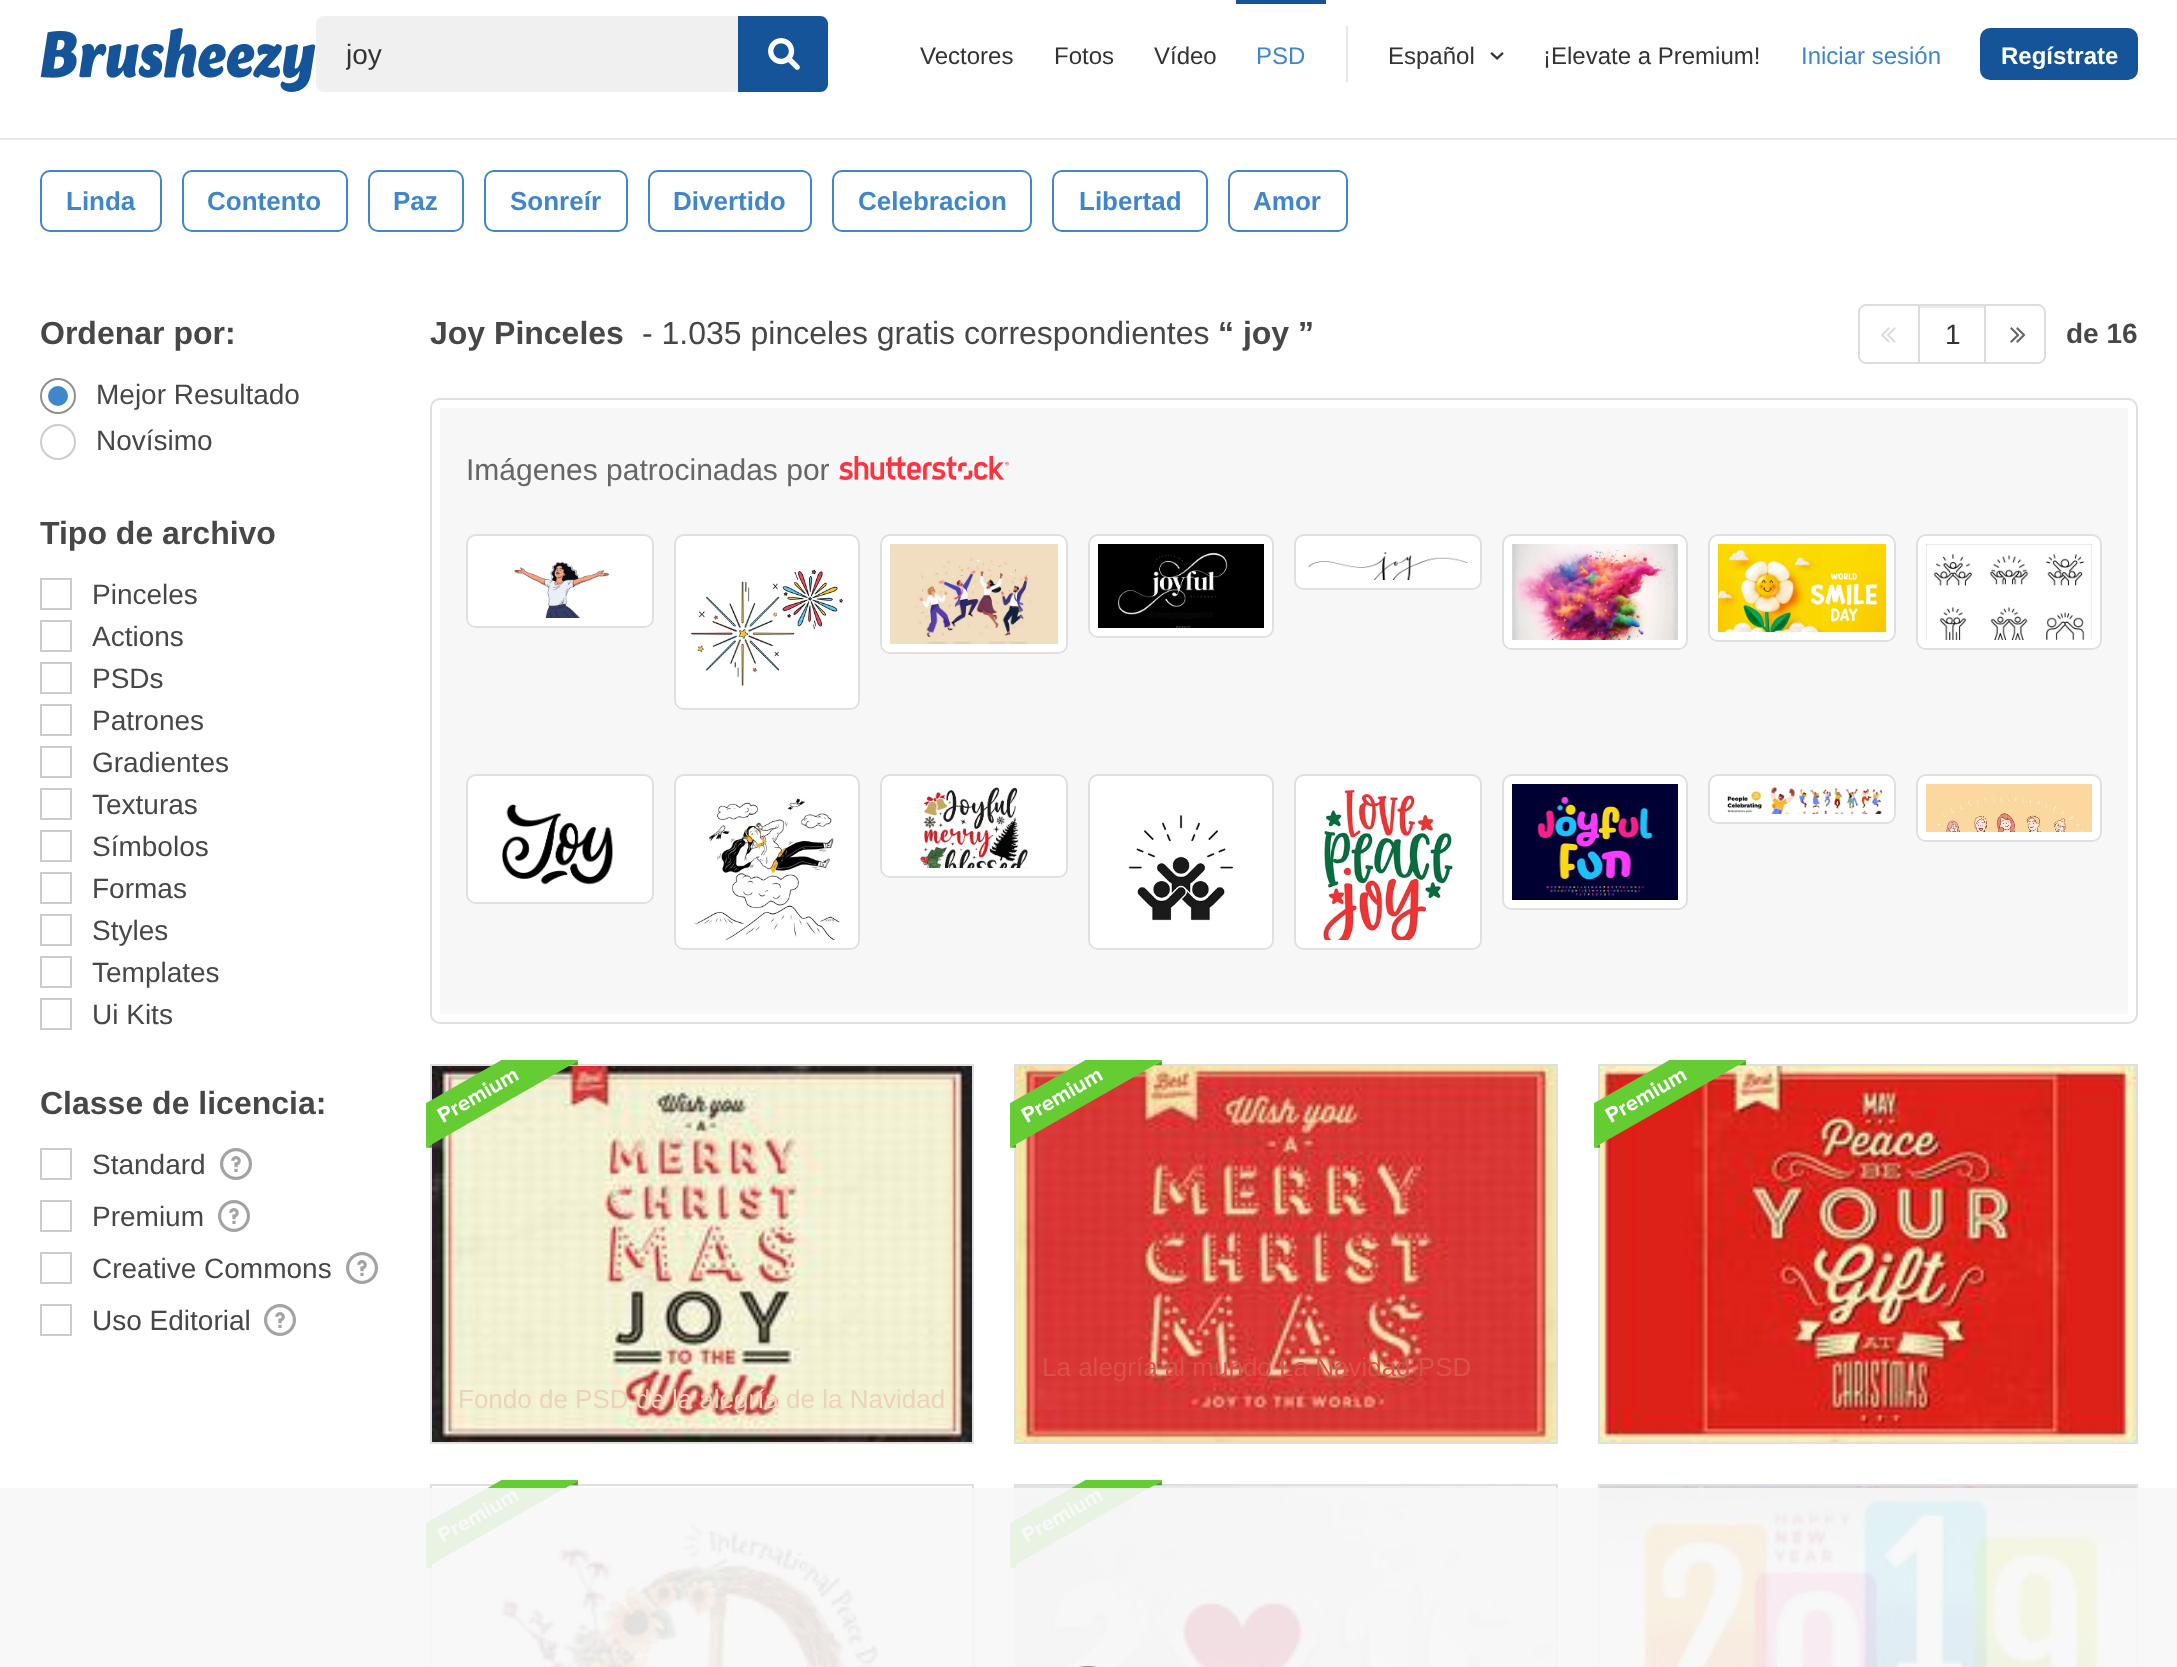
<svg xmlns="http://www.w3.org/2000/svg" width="2177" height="1667">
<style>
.a{font:28px Liberation Sans;fill:#333}
.b{font:24px Liberation Sans;fill:#333}
.c{font:24px Liberation Sans;fill:#3f86ca}
.d{font:bold 24px Liberation Sans;fill:#fff}
.e{font:bold 26px Liberation Sans;fill:#3f86ca}
.f{font:bold 32px Liberation Sans;fill:#474747}
.g{font:28px Liberation Sans;fill:#474747}
.h{font:32px Liberation Sans;fill:#474747}
.i{font:bold 28px Liberation Sans;fill:#474747}
.j{font:30px Liberation Sans;fill:#666}
.k{font:26px Liberation Sans;fill:#db5248}
.l{font:26px Liberation Sans;fill:#ebd3ba}
</style>
<defs>
<clipPath id="clip1"><path d="M346 38h362v32H346z"/></clipPath>
</defs>
<rect width="100%" height="100%" fill="#fff"/>
<path fill="#e8e8e8" d="M0 138h2177v2H0z"/>
<image href="1.png" x="40" y="28" width="276" height="64"/>
<rect fill="#f0f0f0" x="316" y="16" width="512" height="76" rx="8"/>
<path fill="#155499" d="M738 16h82c4.5 0 8 3.5 8 8v60c0 4.5-3.5 8-8 8h-82z"/>
<image href="2.png" x="768" y="38" width="32" height="32"/>
<path fill="#155499" d="M1236 0h90v4H1236z"/>
<path fill="#e8e8e8" d="M1346 26h2v56H1346z"/>
<image href="3.png" x="1490" y="52" width="14" height="8"/>
<rect fill="#155499" x="1980" y="28" width="158" height="52" rx="10"/>
<rect fill="none" stroke="#3f86ca" stroke-width="2" x="41" y="171" width="120" height="60" rx="9"/>
<rect fill="none" stroke="#3f86ca" stroke-width="2" x="183" y="171" width="164" height="60" rx="9"/>
<rect fill="none" stroke="#3f86ca" stroke-width="2" x="369" y="171" width="94" height="60" rx="9"/>
<rect fill="none" stroke="#3f86ca" stroke-width="2" x="485" y="171" width="142" height="60" rx="9"/>
<rect fill="none" stroke="#3f86ca" stroke-width="2" x="649" y="171" width="162" height="60" rx="9"/>
<rect fill="none" stroke="#3f86ca" stroke-width="2" x="833" y="171" width="198" height="60" rx="9"/>
<rect fill="none" stroke="#3f86ca" stroke-width="2" x="1053" y="171" width="154" height="60" rx="9"/>
<rect fill="none" stroke="#3f86ca" stroke-width="2" x="1229" y="171" width="118" height="60" rx="9"/>
<circle fill="none" stroke="#909090" stroke-width="2" cx="58" cy="396" r="17"/>
<circle fill="#3f86ca" cx="58" cy="396" r="10"/>
<circle fill="none" stroke="#ccc" stroke-width="2" cx="58" cy="442" r="17"/>
<path fill="none" stroke="#ccc" stroke-width="2" d="M41 579h30v30H41z"/>
<path fill="none" stroke="#ccc" stroke-width="2" d="M41 621h30v30H41z"/>
<path fill="none" stroke="#ccc" stroke-width="2" d="M41 663h30v30H41z"/>
<path fill="none" stroke="#ccc" stroke-width="2" d="M41 705h30v30H41z"/>
<path fill="none" stroke="#ccc" stroke-width="2" d="M41 747h30v30H41z"/>
<path fill="none" stroke="#ccc" stroke-width="2" d="M41 789h30v30H41z"/>
<path fill="none" stroke="#ccc" stroke-width="2" d="M41 831h30v30H41z"/>
<path fill="none" stroke="#ccc" stroke-width="2" d="M41 873h30v30H41z"/>
<path fill="none" stroke="#ccc" stroke-width="2" d="M41 915h30v30H41z"/>
<path fill="none" stroke="#ccc" stroke-width="2" d="M41 957h30v30H41z"/>
<path fill="none" stroke="#ccc" stroke-width="2" d="M41 999h30v30H41z"/>
<path fill="none" stroke="#ccc" stroke-width="2" d="M41 1149h30v30H41z"/>
<image href="4.png" x="220" y="1148" width="32" height="32"/>
<path fill="none" stroke="#ccc" stroke-width="2" d="M41 1201h30v30H41z"/>
<image href="4.png" x="218" y="1200" width="32" height="32"/>
<path fill="none" stroke="#ccc" stroke-width="2" d="M41 1253h30v30H41z"/>
<image href="4.png" x="346" y="1252" width="32" height="32"/>
<path fill="none" stroke="#ccc" stroke-width="2" d="M41 1305h30v30H41z"/>
<image href="4.png" x="264" y="1304" width="32" height="32"/>
<path fill="#ddd" fill-rule="evenodd" d="M1866 304h52v60h-52c-4 0-8-4-8-8v-44c0-4 4-8 8-8zm0 2h52v56h-52c-3 0-6-3-6-6v-44c0-3 3-6 6-6z"/>
<image href="5.png" x="1881" y="327" width="15" height="16"/>
<path fill="#ececec" d="M1920 306h64v2H1920z"/>
<path fill="none" stroke="#ddd" stroke-width="2" d="M1919 305h66v58H1919z"/>
<path fill="#ddd" fill-rule="evenodd" d="M1986 304h52c4 0 8 4 8 8v44c0 4-4 8-8 8h-52zm0 2h52c3 0 6 3 6 6v44c0 3-3 6-6 6h-52z"/>
<image href="6.png" x="2010" y="327" width="16" height="16"/>
<rect fill="none" stroke="#dfdfdf" stroke-width="2" x="431" y="399" width="1706" height="624" rx="9"/>
<path fill="#f7f7f7" d="M440 408h1688v606H440z"/>
<image href="7.png" x="839" y="456" width="170" height="24"/>
<rect fill="#fff" stroke="#dfdfdf" stroke-width="2" x="467" y="535" width="186" height="92" rx="9"/>
<image href="8.png" x="514" y="561" width="96" height="57"/>
<path fill="#fff" d="M468 618h184c0 4.5-3.5 8-8 8h-168c-4.5 0-8-3.5-8-8z"/>
<rect fill="#fff" stroke="#dfdfdf" stroke-width="2" x="675" y="535" width="184" height="174" rx="9"/>
<image href="9.png" x="691" y="569" width="153" height="117"/>
<path fill="#fff" d="M676 700h182c0 4.5-3.5 8-8 8h-166c-4.5 0-8-3.5-8-8z"/>
<rect fill="#fff" stroke="#dfdfdf" stroke-width="2" x="881" y="535" width="186" height="118" rx="9"/>
<image href="10.png" x="890" y="544" width="168" height="100"/>
<path fill="#fff" d="M882 644h184c0 4.5-3.5 8-8 8h-168c-4.5 0-8-3.5-8-8z"/>
<rect fill="#fff" stroke="#dfdfdf" stroke-width="2" x="1089" y="535" width="184" height="102" rx="9"/>
<image href="11.png" x="1098" y="544" width="166" height="84"/>
<path fill="#fff" d="M1090 628h182c0 4.5-3.5 8-8 8h-166c-4.5 0-8-3.5-8-8z"/>
<rect fill="#fff" stroke="#dfdfdf" stroke-width="2" x="1295" y="535" width="186" height="54" rx="9"/>
<image href="12.png" x="1308" y="551" width="160" height="29"/>
<path fill="#fff" d="M1296 580h184c0 4.5-3.5 8-8 8h-168c-4.5 0-8-3.5-8-8z"/>
<rect fill="#fff" stroke="#dfdfdf" stroke-width="2" x="1503" y="535" width="184" height="114" rx="9"/>
<image href="13.png" x="1512" y="544" width="166" height="96"/>
<path fill="#fff" d="M1504 640h182c0 4.5-3.5 8-8 8h-166c-4.5 0-8-3.5-8-8z"/>
<rect fill="#fff" stroke="#dfdfdf" stroke-width="2" x="1709" y="535" width="186" height="106" rx="9"/>
<image href="14.png" x="1718" y="544" width="168" height="88"/>
<path fill="#fff" d="M1710 632h184c0 4.5-3.5 8-8 8h-168c-4.5 0-8-3.5-8-8z"/>
<rect fill="#fff" stroke="#dfdfdf" stroke-width="2" x="1917" y="535" width="184" height="114" rx="9"/>
<image href="15.png" x="1926" y="544" width="166" height="96"/>
<path fill="#fff" d="M1918 640h182c0 4.5-3.5 8-8 8h-166c-4.5 0-8-3.5-8-8z"/>
<rect fill="#fff" stroke="#dfdfdf" stroke-width="2" x="467" y="775" width="186" height="128" rx="9"/>
<image href="16.png" x="502" y="804" width="112" height="81"/>
<path fill="#fff" d="M468 894h184c0 4.5-3.5 8-8 8h-168c-4.5 0-8-3.5-8-8z"/>
<rect fill="#fff" stroke="#dfdfdf" stroke-width="2" x="675" y="775" width="184" height="174" rx="9"/>
<image href="17.png" x="694" y="798" width="146" height="142"/>
<path fill="#fff" d="M676 940h182c0 4.5-3.5 8-8 8h-166c-4.5 0-8-3.5-8-8z"/>
<rect fill="#fff" stroke="#dfdfdf" stroke-width="2" x="881" y="775" width="186" height="102" rx="9"/>
<image href="18.png" x="920" y="787" width="108" height="81"/>
<path fill="#fff" d="M882 868h184c0 4.5-3.5 8-8 8h-168c-4.5 0-8-3.5-8-8z"/>
<rect fill="#fff" stroke="#dfdfdf" stroke-width="2" x="1089" y="775" width="184" height="174" rx="9"/>
<image href="19.png" x="1128" y="815" width="106" height="106"/>
<path fill="#fff" d="M1090 940h182c0 4.5-3.5 8-8 8h-166c-4.5 0-8-3.5-8-8z"/>
<rect fill="#fff" stroke="#dfdfdf" stroke-width="2" x="1295" y="775" width="186" height="174" rx="9"/>
<image href="20.png" x="1322" y="789" width="132" height="151"/>
<path fill="#fff" d="M1296 940h184c0 4.5-3.5 8-8 8h-168c-4.5 0-8-3.5-8-8z"/>
<rect fill="#fff" stroke="#dfdfdf" stroke-width="2" x="1503" y="775" width="184" height="134" rx="9"/>
<image href="21.png" x="1512" y="784" width="166" height="116"/>
<path fill="#fff" d="M1504 900h182c0 4.5-3.5 8-8 8h-166c-4.5 0-8-3.5-8-8z"/>
<rect fill="#fff" stroke="#dfdfdf" stroke-width="2" x="1709" y="775" width="186" height="48" rx="9"/>
<image href="22.png" x="1727" y="787" width="156" height="27"/>
<path fill="#fff" d="M1710 814h184c0 4.5-3.5 8-8 8h-168c-4.5 0-8-3.5-8-8z"/>
<rect fill="#fff" stroke="#dfdfdf" stroke-width="2" x="1917" y="775" width="184" height="66" rx="9"/>
<image href="23.png" x="1926" y="784" width="166" height="48"/>
<path fill="#fff" d="M1918 832h182c0 4.5-3.5 8-8 8h-166c-4.5 0-8-3.5-8-8z"/>
<path fill="none" stroke="#dfdfdf" stroke-width="2" d="M1015 1065h542v378H1015z"/>
<image href="25.png" x="1016" y="1066" width="540" height="376"/>
<image href="24.png" x="1010" y="1060" width="152" height="88"/>
<path fill="none" stroke="#dfdfdf" stroke-width="2" d="M1599 1065h538v378H1599z"/>
<image href="27.png" x="1600" y="1066" width="536" height="376"/>
<image href="26.png" x="1594" y="1060" width="152" height="88"/>
<path fill="none" stroke="#dfdfdf" stroke-width="2" d="M431 1065h542v378H431z"/>
<image href="29.png" x="432" y="1066" width="540" height="376"/>
<image href="28.png" x="426" y="1060" width="152" height="88"/>
<path fill="none" stroke="#dfdfdf" stroke-width="2" d="M431 1485h542v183H431z"/>
<image href="31.png" x="496" y="1519" width="390" height="148"/>
<image href="30.png" x="426" y="1480" width="152" height="88"/>
<path fill="none" stroke="#dfdfdf" stroke-width="2" d="M1015 1485h542v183H1015z"/>
<image href="33.png" x="1016" y="1486" width="540" height="181"/>
<image href="32.png" x="1010" y="1480" width="152" height="88"/>
<path fill="none" stroke="#dfdfdf" stroke-width="2" d="M1599 1485h538v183H1599z"/>
<image href="34.png" x="1600" y="1486" width="536" height="181"/>
<path fill="#f7f7f7e6" d="M0 1488h2177v179H0z"/>
<rect fill="none" stroke="#888" stroke-width="2" x="1067" y="1667" width="42" height="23" rx="21"/>
<g clip-path="url(#clip1)">
<text class="a" x="346" y="64">joy</text>
</g>
<text class="b" x="920" y="64">Vectores</text>
<text class="b" x="1054" y="64">Fotos</text>
<text class="b" x="1154" y="64">Vídeo</text>
<text class="c" x="1256" y="64">PSD</text>
<text class="b" x="1388" y="64">Español</text>
<text class="b" x="1543" y="64">¡Elevate a Premium!</text>
<text class="c" x="1801" y="64">Iniciar sesión</text>
<text class="d" x="2001" y="64">Regístrate</text>
<text class="e" x="66" y="210">Linda</text>
<text class="e" x="207" y="210">Contento</text>
<text class="e" x="393" y="210">Paz</text>
<text class="e" x="510" y="210">Sonreír</text>
<text class="e" x="673" y="210">Divertido</text>
<text class="e" x="858" y="210">Celebracion</text>
<text class="e" x="1079" y="210">Libertad</text>
<text class="e" x="1253" y="210">Amor</text>
<text class="f" x="40" y="344">Ordenar por:</text>
<text class="g" x="96" y="404">Mejor Resultado</text>
<text class="g" x="96" y="450">Novísimo</text>
<text class="f" x="40" y="544">Tipo de archivo</text>
<text class="g" x="92" y="604">Pinceles</text>
<text class="g" x="92" y="646">Actions</text>
<text class="g" x="92" y="688">PSDs</text>
<text class="g" x="92" y="730">Patrones</text>
<text class="g" x="92" y="772">Gradientes</text>
<text class="g" x="92" y="814">Texturas</text>
<text class="g" x="92" y="856">Símbolos</text>
<text class="g" x="92" y="898">Formas</text>
<text class="g" x="92" y="940">Styles</text>
<text class="g" x="92" y="982">Templates</text>
<text class="g" x="92" y="1024">Ui Kits</text>
<text class="f" x="40" y="1114">Classe de licencia:</text>
<text class="g" x="92" y="1174">Standard</text>
<text class="g" x="92" y="1226">Premium</text>
<text class="g" x="92" y="1278">Creative Commons</text>
<text class="g" x="92" y="1330">Uso Editorial</text>
<text class="f" x="430" y="344">Joy Pinceles</text>
<text class="h" x="642" y="344">- 1.035 pinceles gratis correspondientes</text>
<text class="f" x="1218" y="344">“ joy ”</text>
<text class="a" x="1945" y="344">1</text>
<text class="i" x="2066" y="343">de 16</text>
<text class="j" x="466" y="480">Imágenes patrocinadas por</text>
<text class="k" x="1042" y="1376">La alegría al mundo La Navidad PSD</text>
<text class="l" x="458" y="1408">Fondo de PSD de la alegría de la Navidad</text>
</svg>
